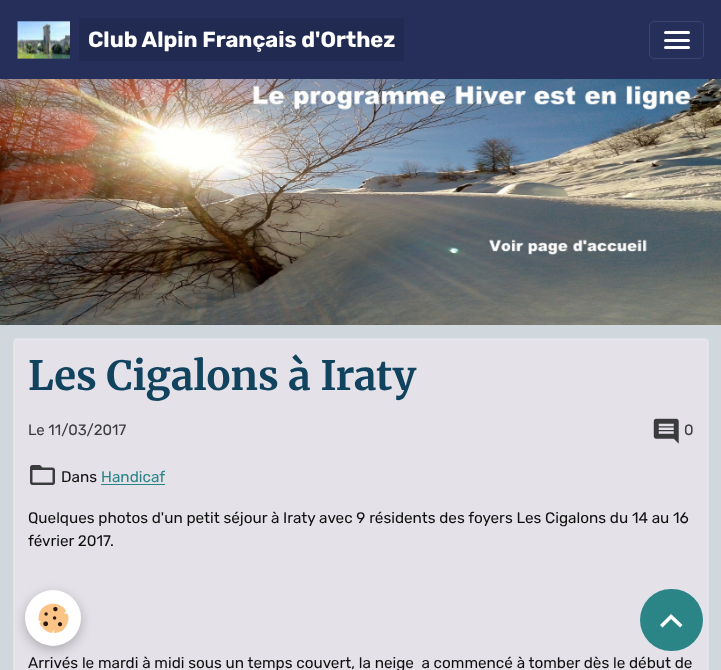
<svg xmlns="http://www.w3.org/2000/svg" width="721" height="670">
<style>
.a{font:bold 21.9px Rubik;fill:#fff}
.b{font:bold 40.25px Merriweather;fill:#11435e}
.c{font:15px Rubik;fill:#3a3b3c}
.d{font:15.3px Rubik;fill:#0f1111}
.e{font:15.3px Rubik;fill:#2b8587}
</style>
<rect width="100%" height="100%" fill="#d1d8dd"/>
<path fill="#252f5a" d="M0 0h721v79H0z"/>
<image href="1.png" x="17" y="21" width="53" height="38"/>
<path fill="#212a51" d="M79 18h325v43H79z"/>
<rect fill="none" stroke="#3b446b" x="649.5" y="21.5" width="54" height="37" rx="4.5"/>
<rect fill="#fff" x="664" y="31" width="26" height="3" rx="1.5"/>
<rect fill="#fff" x="664" y="39" width="26" height="3" rx="1.5"/>
<rect fill="#fff" x="664" y="46" width="26" height="3" rx="1.5"/>
<image href="2.png" x="0" y="79" width="721" height="246"/>
<rect fill="none" stroke="#e0e2eb" x="13.5" y="338.5" width="695" height="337" rx="4.5"/>
<path fill="#e4e1e8" stroke="#e5e6e6" d="M14.5 339.5h693v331H14.5z"/>
<image href="3.png" x="653" y="418" width="26" height="26"/>
<image href="4.png" x="30" y="465" width="25" height="20"/>
<path fill="#2b8587" d="M101 484h64v1H101z"/>
<rect fill="#0000003d" filter="blur(6px)" x="25" y="594" width="56" height="56" rx="28"/>
<circle fill="#fff" cx="53" cy="618" r="28"/>
<image href="5.png" x="38" y="603" width="31" height="30"/>
<rect fill="#2b8587" x="640" y="589" width="63" height="62" rx="31"/>
<path fill="#fff" d="M671 614l11.5 11l-2.5 2.5l-9-8.5l-8.5 8.5l-2.5-2.5z"/>
<text class="a" x="88" y="47">Club Alpin Français d'Orthez</text>
<text class="b" x="28" y="390">Les Cigalons à Iraty</text>
<text class="c" x="28" y="435">Le 11/03/2017</text>
<text class="c" x="684" y="435">0</text>
<text class="d" x="61" y="482">Dans</text>
<text class="e" x="101" y="482">Handicaf</text>
<text class="d" x="28" y="523">Quelques photos d'un petit séjour à Iraty avec 9 résidents des foyers Les Cigalons du 14 au 16</text>
<text class="d" x="28" y="546">février 2017.</text>
<text class="d" xml:space="preserve" x="28" y="668">Arrivés le mardi à midi sous un temps couvert, la neige  a commencé à tomber dès le début de</text>
</svg>
